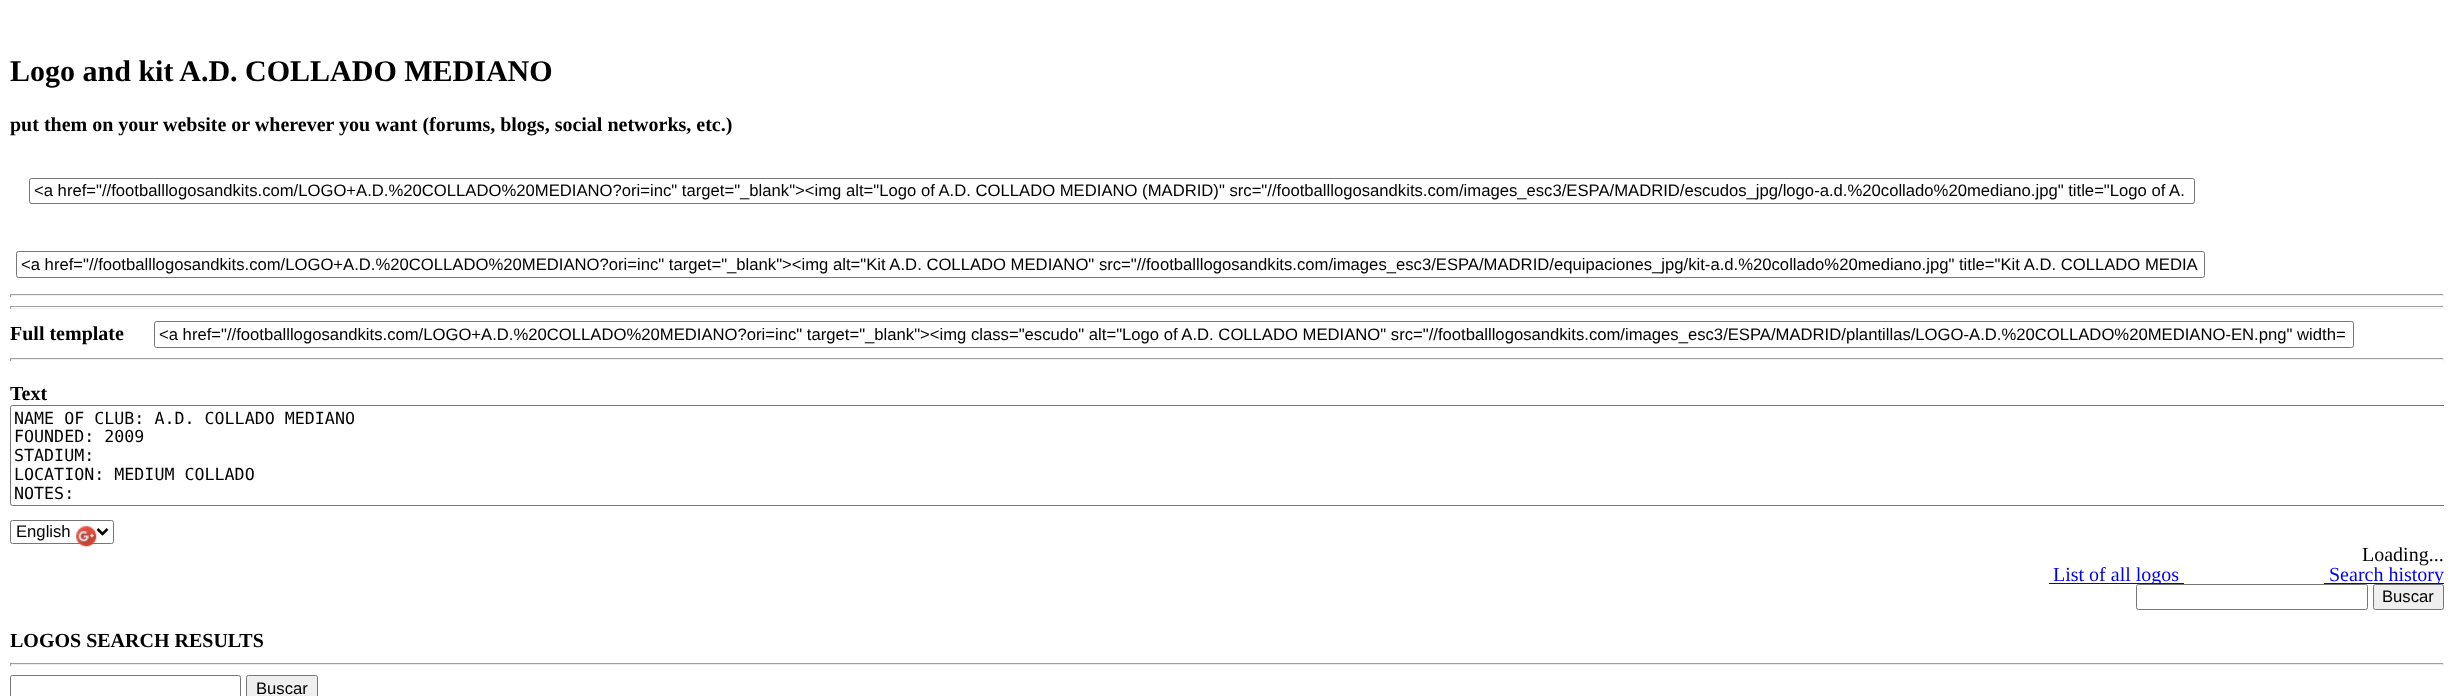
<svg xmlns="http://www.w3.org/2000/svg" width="2453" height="696">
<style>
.a{font:bold 30px Liberation Serif;fill:#000}
.b{font:bold 20px Liberation Serif;fill:#000}
.c{font:16.67px Liberation Sans;fill:#000}
.d{font:16.67px DejaVu Sans Mono;fill:#000}
.e{font:20px Liberation Serif;fill:#000}
.f{font:20px Liberation Serif;fill:#00e}
</style>
<defs>
<clipPath id="clip1"><path d="M10 30h2434v496H10z"/></clipPath>
</defs>
<rect width="100%" height="100%" fill="#fff"/>
<rect fill="none" stroke="#767676" x="29.5" y="178.5" width="2165" height="25" rx="2"/>
<rect fill="none" stroke="#767676" x="16.5" y="251.5" width="2188" height="26" rx="2"/>
<path fill="#9f9f9f" d="M10 294h2434v1H10z"/>
<path fill="#eee" d="M2443 294h1v3H2443z"/>
<path fill="#eee" d="M10 295h2434v1H10z"/>
<path fill="#9f9f9f" d="M10 294h1v3H10z"/>
<path fill="#9f9f9f" d="M10 306h2434v1H10z"/>
<path fill="#eee" d="M2443 306h1v3H2443z"/>
<path fill="#eee" d="M10 308h2434v1H10z"/>
<path fill="#9f9f9f" d="M10 306h1v3H10z"/>
<rect fill="none" stroke="#767676" x="154.5" y="321.5" width="2199" height="26" rx="2"/>
<path fill="#9f9f9f" d="M10 358h2434v1H10z"/>
<path fill="#eee" d="M2443 358h1v3H2443z"/>
<path fill="#eee" d="M10 359h2434v1H10z"/>
<path fill="#9f9f9f" d="M10 358h1v3H10z"/>
<g clip-path="url(#clip1)">
<rect fill="none" stroke="#767676" x="10.5" y="405.5" width="2440" height="100" rx="2"/>
</g>
<rect fill="none" stroke="#767676" x="10.5" y="520.5" width="103" height="23" rx="2"/>
<path fill="none" stroke="#000" stroke-width="2.5" d="M97.5 529l5 5l5-5"/>
<image href="1.png" x="76" y="526" width="21" height="21"/>
<path fill="#00e" d="M2049 583h135v1H2049z"/>
<path fill="#00e" d="M2324 583h120v1H2324z"/>
<path fill="#9f9f9f" d="M10 663h2434v1H10z"/>
<path fill="#eee" d="M2443 663h1v3H2443z"/>
<path fill="#eee" d="M10 664h2434v1H10z"/>
<path fill="#9f9f9f" d="M10 663h1v3H10z"/>
<rect fill="none" stroke="#767676" x="10.5" y="675.5" width="230" height="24" rx="2"/>
<rect fill="#efefef" stroke="#767676" x="246.5" y="675.5" width="71" height="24" rx="2"/>
<text class="a" x="10" y="81">Logo and kit A.D. COLLADO MEDIANO</text>
<text class="b" x="10" y="131">put them on your website or wherever you want (forums, blogs, social networks, etc.)</text>
<text class="c" x="34" y="196">&lt;a href="//footballlogosandkits.com/LOGO+A.D.%20COLLADO%20MEDIANO?ori=inc" target="_blank"&gt;&lt;img alt="Logo of A.D. COLLADO MEDIANO (MADRID)" src="//footballlogosandkits.com/images_esc3/ESPA/MADRID/escudos_jpg/logo-a.d.%20collado%20mediano.jpg" title="Logo of A.</text>
<text class="c" x="21" y="270">&lt;a href="//footballlogosandkits.com/LOGO+A.D.%20COLLADO%20MEDIANO?ori=inc" target="_blank"&gt;&lt;img alt="Kit A.D. COLLADO MEDIANO" src="//footballlogosandkits.com/images_esc3/ESPA/MADRID/equipaciones_jpg/kit-a.d.%20collado%20mediano.jpg" title="Kit A.D. COLLADO MEDIA</text>
<text class="b" x="10" y="340">Full template</text>
<text class="c" x="159" y="340">&lt;a href="//footballlogosandkits.com/LOGO+A.D.%20COLLADO%20MEDIANO?ori=inc" target="_blank"&gt;&lt;img class="escudo" alt="Logo of A.D. COLLADO MEDIANO" src="//footballlogosandkits.com/images_esc3/ESPA/MADRID/plantillas/LOGO-A.D.%20COLLADO%20MEDIANO-EN.png" width=</text>
<text class="b" x="10" y="400">Text</text>
<text class="d" x="14" y="424">NAME OF CLUB: A.D. COLLADO MEDIANO</text>
<text class="d" x="14" y="442">FOUNDED: 2009</text>
<text class="d" x="14" y="461">STADIUM:</text>
<text class="d" x="14" y="480">LOCATION: MEDIUM COLLADO</text>
<text class="d" x="14" y="499">NOTES:</text>
<text class="c" x="16" y="537">English</text>
<text class="e" x="2362" y="561">Loading...</text>
<text class="f" x="2053" y="581">List of all logos</text>
<text class="f" x="2329" y="581">Search history</text>
<rect fill="#fff" stroke="#767676" x="2136.5" y="584.5" width="231" height="25" rx="2"/>
<rect fill="#efefef" stroke="#767676" x="2373.5" y="584.5" width="70" height="25" rx="2"/>
<text class="c" x="2382" y="602">Buscar</text>
<text class="b" x="10" y="647">LOGOS SEARCH RESULTS</text>
<text class="c" x="256" y="694">Buscar</text>
</svg>
